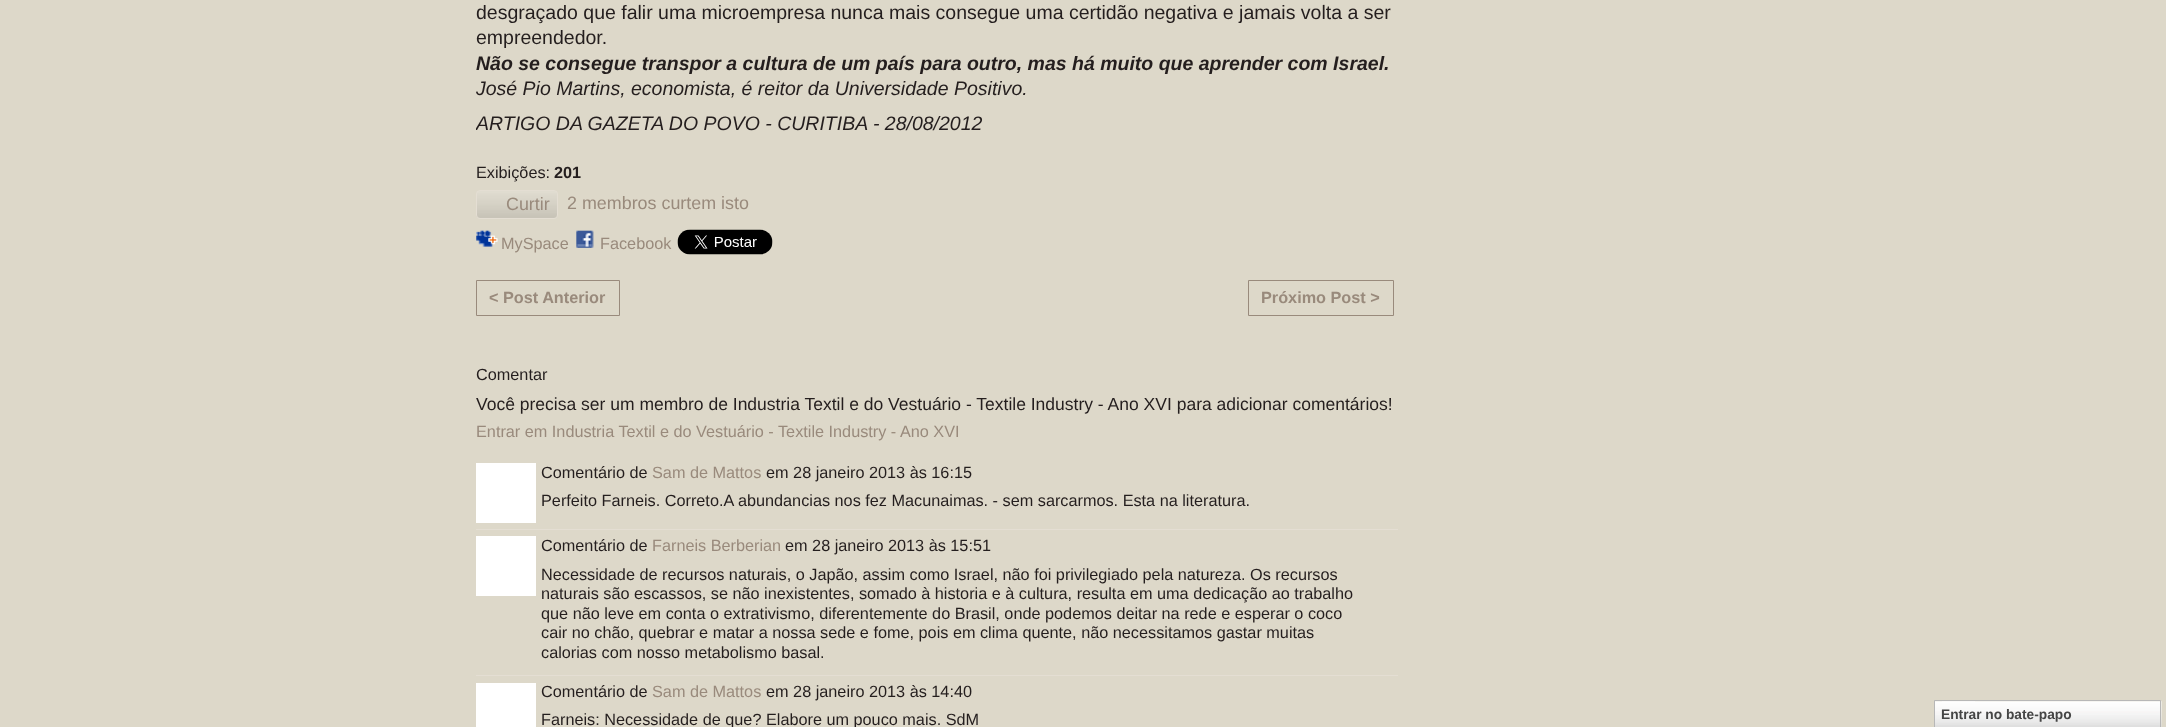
<svg xmlns="http://www.w3.org/2000/svg" width="2166" height="727">
<style>
.a{font:19.5px Liberation Sans;fill:#241e1e}
.b{font:italic bold 19.5px Liberation Sans;fill:#241e1e}
.c{font:italic 19.5px Liberation Sans;fill:#241e1e}
.d{font:16.25px Liberation Sans;fill:#241e1e}
.e{font:bold 16.25px Liberation Sans;fill:#241e1e}
.f{font:17.9px Liberation Sans;fill:#998a7c}
.g{font:16.25px Liberation Sans;fill:#998a7c}
.h{font:bold 16.25px Liberation Sans;fill:#998a7c}
.i{font:17.5px Liberation Sans;fill:#241e1e}
.j{font:bold 13.75px Liberation Sans;fill:#454545}
</style>
<defs>
<clipPath id="clip1"><path d="M476 0h922v143H476z"/></clipPath>
</defs>
<rect width="100%" height="100%" fill="#ddd8c9"/>
<image href="1.png" x="476" y="191" width="82" height="27"/>
<rect fill="none" stroke="#e4ded3" x="476.5" y="190.5" width="81" height="28" rx="3.5"/>
<image href="2.png" x="476" y="230" width="22" height="17"/>
<image href="3.png" x="576" y="230" width="18" height="18"/>
<image href="4.png" x="677" y="229" width="96" height="26"/>
<path fill="none" stroke="#998a7c" d="M476.5 280.5h143v35H476.5z"/>
<path fill="none" stroke="#998a7c" d="M1248.5 280.5h145v35H1248.5z"/>
<path fill="#e4ded3" d="M476 529h922v1H476z"/>
<path fill="#fff" d="M476 463h60v60H476z"/>
<path fill="#e4ded3" d="M476 675h922v1H476z"/>
<path fill="#fff" d="M476 536h60v60H476z"/>
<path fill="#fff" d="M476 683h60v44H476z"/>
<image href="5.png" x="1935" y="701" width="227" height="26"/>
<path fill="none" stroke="#b7b7b7" d="M1934.5 700.5h226v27H1934.5z"/>
<path fill="#faf9f8" d="M1942 701h33v1H1942z"/>
<text class="a" x="476" y="19">desgraçado que falir uma microempresa nunca mais consegue uma certidão negativa e jamais volta a ser</text>
<text class="a" x="476" y="44">empreendedor.</text>
<text class="b" x="476" y="70">Não se consegue transpor a cultura de um país para outro, mas há muito que aprender com Israel.</text>
<text class="c" x="476" y="95">José Pio Martins, economista, é reitor da Universidade Positivo.</text>
<g clip-path="url(#clip1)">
<text class="c" x="476" y="130">ARTIGO DA GAZETA DO POVO - CURITIBA - 28/08/2012</text>
</g>
<text class="d" x="476" y="178">Exibições:</text>
<text class="e" x="554" y="178">201</text>
<text class="f" x="506" y="210">Curtir</text>
<text class="f" x="567" y="209">2 membros curtem isto</text>
<text class="g" x="501" y="249">MySpace</text>
<text class="g" x="600" y="249">Facebook</text>
<text class="h" x="489" y="303">&lt; Post Anterior</text>
<text class="h" x="1261" y="303">Próximo Post &gt;</text>
<text class="d" x="476" y="380">Comentar</text>
<text class="i" x="476" y="410">Você precisa ser um membro de Industria Textil e do Vestuário - Textile Industry - Ano XVI para adicionar comentários!</text>
<text class="g" x="476" y="437">Entrar em Industria Textil e do Vestuário - Textile Industry - Ano XVI</text>
<text class="d" x="541" y="478">Comentário de</text>
<text class="g" x="652" y="478">Sam de Mattos</text>
<text class="d" x="766" y="478">em 28 janeiro 2013 às 16:15</text>
<text class="d" x="541" y="506">Perfeito Farneis. Correto.A abundancias nos fez Macunaimas. - sem sarcarmos. Esta na literatura.</text>
<text class="d" x="541" y="551">Comentário de</text>
<text class="g" x="652" y="551">Farneis Berberian</text>
<text class="d" x="785" y="551">em 28 janeiro 2013 às 15:51</text>
<text class="d" x="541" y="580">Necessidade de recursos naturais, o Japão, assim como Israel, não foi privilegiado pela natureza. Os recursos</text>
<text class="d" x="541" y="599">naturais são escassos, se não inexistentes, somado à historia e à cultura, resulta em uma dedicação ao trabalho</text>
<text class="d" x="541" y="619">que não leve em conta o extrativismo, diferentemente do Brasil, onde podemos deitar na rede e esperar o coco</text>
<text class="d" x="541" y="638">cair no chão, quebrar e matar a nossa sede e fome, pois em clima quente, não necessitamos gastar muitas</text>
<text class="d" x="541" y="658">calorias com nosso metabolismo basal.</text>
<text class="d" x="541" y="697">Comentário de</text>
<text class="g" x="652" y="697">Sam de Mattos</text>
<text class="d" x="766" y="697">em 28 janeiro 2013 às 14:40</text>
<text class="d" x="541" y="725">Farneis: Necessidade de que? Elabore um pouco mais. SdM</text>
<text class="j" x="1941" y="719">Entrar no bate-papo</text>
</svg>
